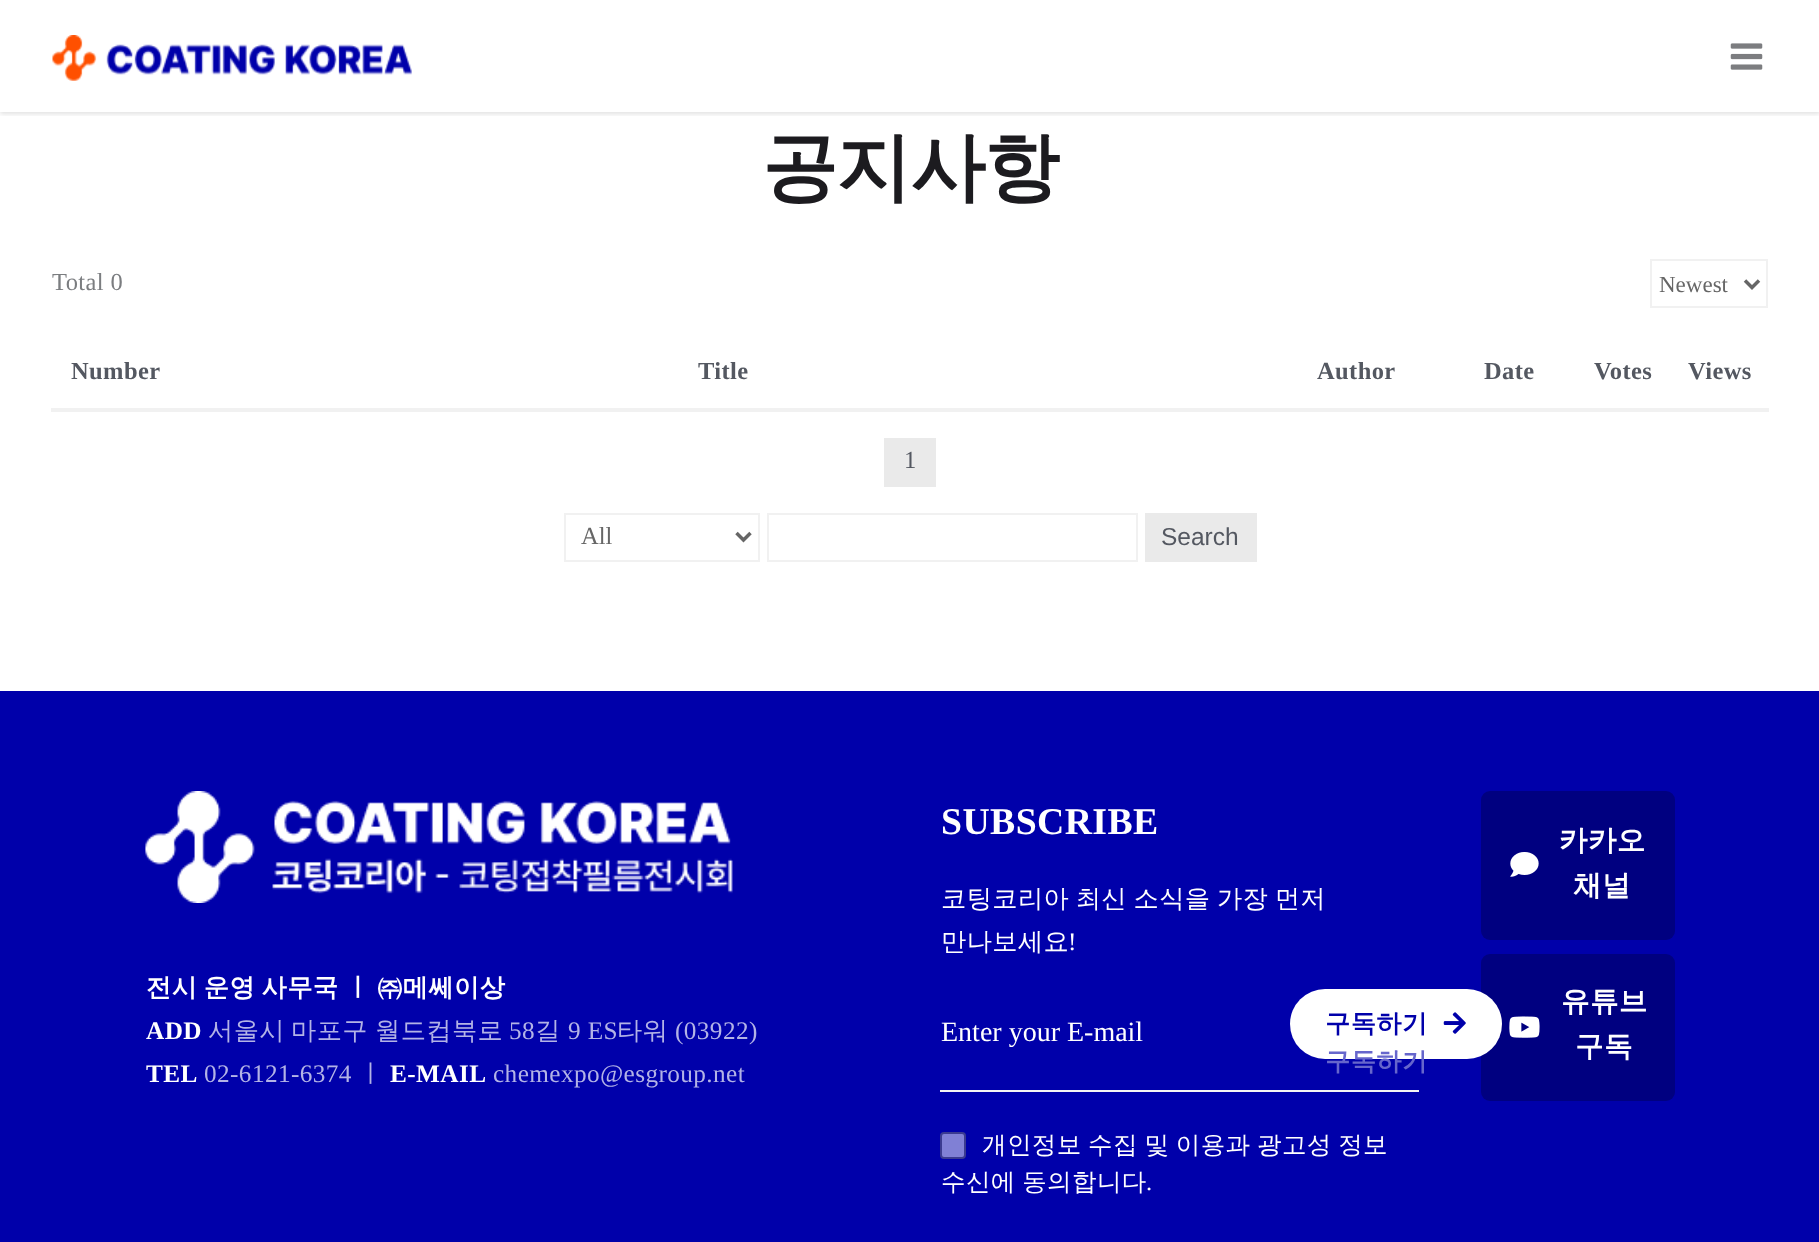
<svg xmlns="http://www.w3.org/2000/svg" width="1819" height="1242">
<style>
.a{font:bold 75.5px WenQuanYi Zen Hei;letter-spacing:-1.5px;fill:#1c1b1f}
.b{font:24.5px Liberation Serif;letter-spacing:0.4px;fill:#7b7d80}
.c{font:23px Liberation Serif;fill:#666}
.d{font:bold 24.5px Liberation Serif;letter-spacing:0.4px;fill:#545861}
.e{font:24.5px Liberation Serif;letter-spacing:0.4px;fill:#545861}
.f{font:24.5px Liberation Serif;fill:#666}
.g{font:24.5px Liberation Sans;fill:#545861}
.h{font:bold 25.25px WenQuanYi Zen Hei;letter-spacing:0.4px;fill:#fff}
.i{font:bold 25.25px Liberation Serif;letter-spacing:0.4px;fill:#fff}
.j{font:500 25.25px WenQuanYi Zen Hei;letter-spacing:0.4px;fill:#b3b3e6}
.k{font:25.25px Liberation Serif;letter-spacing:0.4px;fill:#b3b3e6}
.l{font:bold 37.75px Liberation Serif;letter-spacing:0.4px;fill:#fff}
.m{font:500 25.25px WenQuanYi Zen Hei;letter-spacing:0.4px;fill:#fff}
.n{font:25.25px Liberation Serif;letter-spacing:0.4px;fill:#fff}
.o{font:28px Liberation Serif;fill:#fff}
.p{font:bold 25.25px WenQuanYi Zen Hei;letter-spacing:0.4px;fill:#00a}
.q{font:bold 25.25px WenQuanYi Zen Hei;letter-spacing:0.4px;fill:#66c}
.r{font:500 24.5px WenQuanYi Zen Hei;letter-spacing:0.4px;fill:#fff}
.s{font:24.5px Liberation Serif;letter-spacing:0.4px;fill:#fff}
.t{font:bold 28.5px WenQuanYi Zen Hei;letter-spacing:0.4px;fill:#fff}
</style>
<defs>
<clipPath id="clip1"><path d="M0 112h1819v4H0z"/></clipPath>
</defs>
<rect width="100%" height="100%" fill="#fff"/>
<g clip-path="url(#clip1)">
<path fill="#0000001f" filter="blur(2.5px)" d="M0 2h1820v112H0z"/>
</g>
<image href="1.png" x="52" y="35" width="360" height="46"/>
<image href="2.png" x="1730" y="43" width="33" height="27"/>
<path fill="none" stroke="#f1f1f1" stroke-width="2" d="M1651 260h116v47H1651z"/>
<path fill="none" stroke="#666" stroke-width="3.5" d="M1745 280.5l7 7l7-7"/>
<path fill="#f1f1f1" d="M51 408h1718v4H51z"/>
<path fill="#eaeaea" d="M884 438h52v49H884z"/>
<path fill="none" stroke="#f1f1f1" stroke-width="2" d="M565 514h194v47H565z"/>
<path fill="none" stroke="#666" stroke-width="3.5" d="M736.5 533l7 7l7-7"/>
<path fill="none" stroke="#f1f1f1" stroke-width="2" d="M768 514h369v47H768z"/>
<path fill="#eaeaea" d="M1145 513h112v49H1145z"/>
<path fill="#00a" d="M0 691h1819v551H0z"/>
<image href="3.png" x="145" y="791" width="588" height="112"/>
<rect fill="#000080" x="1481" y="954" width="194" height="147" rx="9"/>
<rect fill="#fff" x="1290" y="989" width="212" height="70" rx="35"/>
<image href="4.png" x="1443" y="1012" width="23" height="22"/>
<path fill="#f4f4f4" d="M940 1090h479v2H940z"/>
<rect fill="#8080d5" stroke="#3b3b90" stroke-width="2" x="941" y="1133" width="24" height="25" rx="3"/>
<rect fill="#000080" x="1481" y="791" width="194" height="149" rx="9"/>
<image href="5.png" x="1510" y="852" width="29" height="25"/>
<image href="6.png" x="1509" y="1016" width="31" height="22"/>
<text class="a" x="762" y="193">공지사항</text>
<text class="b" x="52" y="290">Total 0</text>
<text class="c" x="1659" y="292">Newest</text>
<text class="d" x="71" y="379">Number</text>
<text class="d" x="698" y="379">Title</text>
<text class="d" x="1317" y="379">Author</text>
<text class="d" x="1484" y="379">Date</text>
<text class="d" x="1594" y="379">Votes</text>
<text class="d" x="1688" y="379">Views</text>
<text class="e" x="904" y="468">1</text>
<text class="f" x="581" y="544">All</text>
<text class="g" x="1161" y="545">Search</text>
<text class="h" x="146" y="996" word-spacing="-1.5">전시 운영 사무국 ㅣ ㈜메쎄이상</text>
<text class="i" x="146" y="1039">ADD</text>
<text class="j" x="208" y="1039">서울시</text>
<text class="j" x="291" y="1039">마포구</text>
<text class="j" x="375" y="1039">월드컵북로</text>
<text class="k" x="509" y="1039">58</text>
<text class="j" x="535" y="1039">길</text>
<text class="k" x="568" y="1039">9 ES</text>
<text class="j" x="617" y="1039">타워</text>
<text class="k" x="675" y="1039">(03922)</text>
<text class="i" x="146" y="1082">TEL</text>
<text class="k" x="204" y="1082">02-6121-6374</text>
<text class="j" x="358" y="1082">ㅣ</text>
<text class="i" x="390" y="1082">E-MAIL</text>
<text class="k" x="493" y="1082">chemexpo@esgroup.net</text>
<text class="l" x="941" y="834">SUBSCRIBE</text>
<text class="m" x="941" y="907" word-spacing="-1.5">코팅코리아 최신 소식을 가장 먼저</text>
<text class="m" x="941" y="950">만나보세요</text>
<text class="n" x="1068" y="950">!</text>
<text class="o" x="941" y="1041">Enter your E-mail</text>
<text class="p" x="1325" y="1032">구독하기</text>
<text class="q" x="1325" y="1070">구독하기</text>
<text class="r" x="982" y="1153" word-spacing="-1.25">개인정보 수집 및 이용과 광고성 정보</text>
<text class="r" x="941" y="1190" word-spacing="-1.25">수신에 동의합니다</text>
<text class="s" x="1146" y="1190">.</text>
<text class="t" x="1559" y="850">카카오</text>
<text class="t" x="1573" y="895">채널</text>
<text class="t" x="1561" y="1011">유튜브</text>
<text class="t" x="1575" y="1056">구독</text>
</svg>
